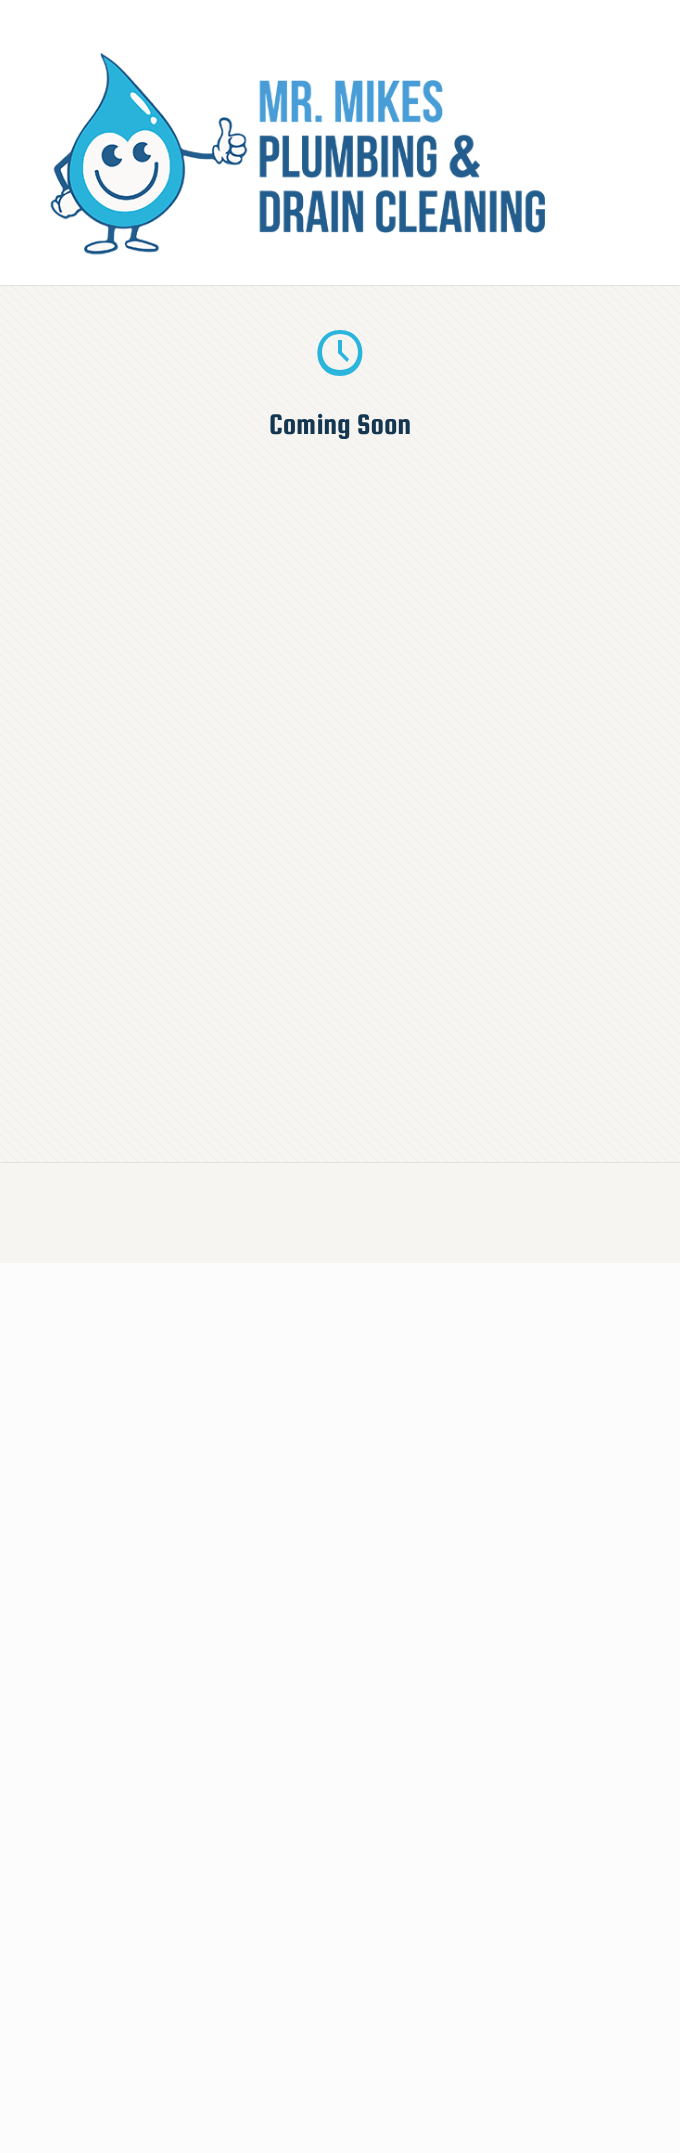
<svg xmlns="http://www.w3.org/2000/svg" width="680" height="2153">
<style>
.a{font:30px Squada One;fill:#143650}
</style>
<rect width="100%" height="100%" fill="#fcfcfc"/>
<path fill="#f7f5f2" d="M0 285h680v978H0z"/>
<path fill="#fff" d="M0 0h680v285H0z"/>
<image href="1.png" x="50" y="53" width="495" height="202"/>
<image href="2.png" x="0" y="285" width="680" height="877"/>
<path fill="#00000014" d="M0 285h680v1H0z"/>
<path fill="#2ab5dc" d="M340 330c30 0 30 46 0 46c-30 0-30-46 0-46zm0 40c24 0 24-36 0-36c-24 0-24 36 0 36zm2-30v12l7 7l-2 3l-9-9v-13z"/>
<path fill="#e3e1df" d="M0 1162h680v1H0z"/>
<text class="a" x="269" y="434">Coming Soon</text>
</svg>
